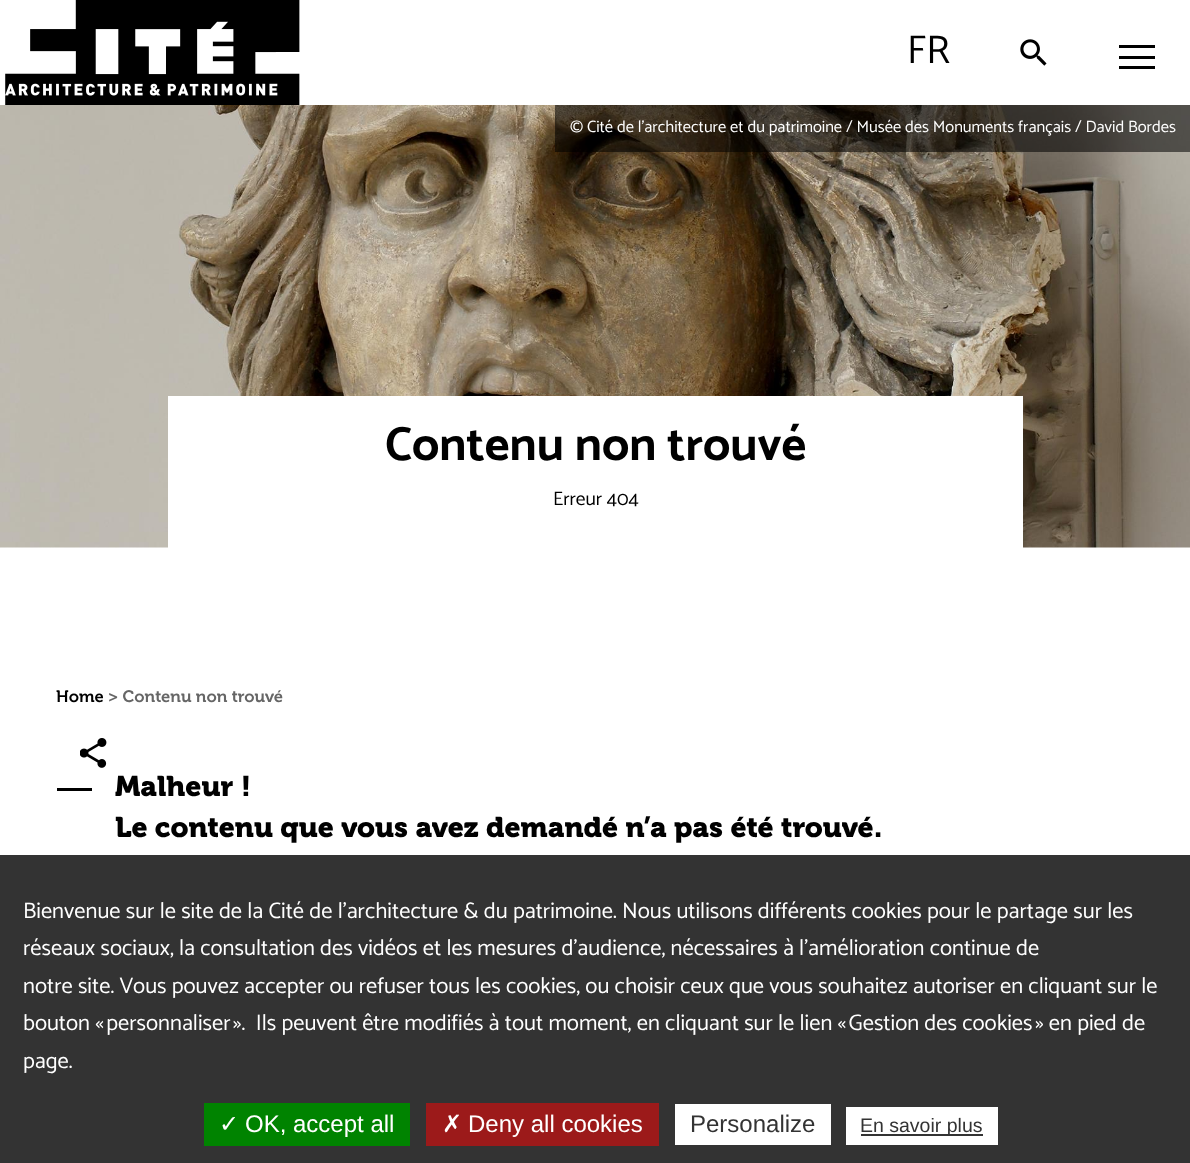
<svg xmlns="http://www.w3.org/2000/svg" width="1190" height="1163">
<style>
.a{font:40px Catamaran;fill:#000}
.b{font:16.5px Catamaran;fill:#fff}
.c{font:bold 48px Catamaran;fill:#000}
.d{font:19.5px Catamaran;fill:#000}
.e{font:600 16.5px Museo;fill:#000}
.f{font:600 16.5px Museo;fill:#666}
.g{font:28.5px Museo;fill:#000}
.h{font:22.5px Catamaran;fill:#fff}
.i{font:24px DejaVu Sans;fill:#fff}
.j{font:24px Liberation Sans;fill:#fff}
.k{font:24px Liberation Sans;fill:#333}
.l{font:19.5px Liberation Sans;fill:#333}
</style>
<rect width="100%" height="100%" fill="#fff"/>
<image href="1.png" x="5" y="0" width="295" height="105"/>
<image href="2.png" x="1020" y="39" width="27" height="27"/>
<path fill="#000" d="M1119 45h36v3H1119z"/>
<path fill="#000" d="M1119 56h36v3H1119z"/>
<path fill="#000" d="M1119 66h36v3H1119z"/>
<image href="3.png" x="0" y="105" width="1190" height="443"/>
<path fill="#0000008c" d="M555 105h635v47H555z"/>
<path fill="#fff" d="M168 396h855v152H168z"/>
<image href="4.png" x="80" y="738" width="27" height="30"/>
<path fill="#000" d="M57 788h35v3H57z"/>
<path fill="#333" d="M0 855h1190v308H0z"/>
<path fill="#008300" d="M204 1103h206v43H204z"/>
<path fill="#9c1a1a" d="M426 1103h233v43H426z"/>
<path fill="#fff" d="M675 1104h156v41H675z"/>
<path fill="#fff" d="M846 1107h152v38H846z"/>
<path fill="#333" d="M861 1134h122v2H861z"/>
<text class="a" x="907" y="63">FR</text>
<text class="b" x="570" y="132">© Cité de l'architecture et du patrimoine / Musée des Monuments français / David Bordes</text>
<text class="c" x="385" y="460">Contenu non trouvé</text>
<text class="d" x="553" y="505">Erreur 404</text>
<text class="e" x="56" y="702">Home</text>
<text class="f" x="108" y="702">&gt; Contenu non trouvé</text>
<text class="g" x="115" y="796">Malheur !</text>
<text class="g" x="115" y="837">Le contenu que vous avez demandé n’a pas été trouvé.</text>
<text class="h" x="23" y="918">Bienvenue sur le site de la Cité de l’architecture &amp; du patrimoine. Nous utilisons différents cookies pour le partage sur les</text>
<text class="h" x="23" y="955">réseaux sociaux, la consultation des vidéos et les mesures d’audience, nécessaires à l’amélioration continue de</text>
<text class="h" x="23" y="993">notre site. Vous pouvez accepter ou refuser tous les cookies, ou choisir ceux que vous souhaitez autoriser en cliquant sur le</text>
<text class="h" xml:space="preserve" x="23" y="1030">bouton « personnaliser ».  Ils peuvent être modifiés à tout moment, en cliquant sur le lien « Gestion des cookies » en pied de</text>
<text class="h" x="23" y="1068">page.</text>
<text class="i" x="219" y="1132">✓</text>
<text class="j" x="245" y="1132">OK, accept all</text>
<text class="i" x="442" y="1132">✗</text>
<text class="j" x="468" y="1132">Deny all cookies</text>
<text class="k" x="690" y="1132">Personalize</text>
<text class="l" x="860" y="1132">En savoir plus</text>
</svg>
